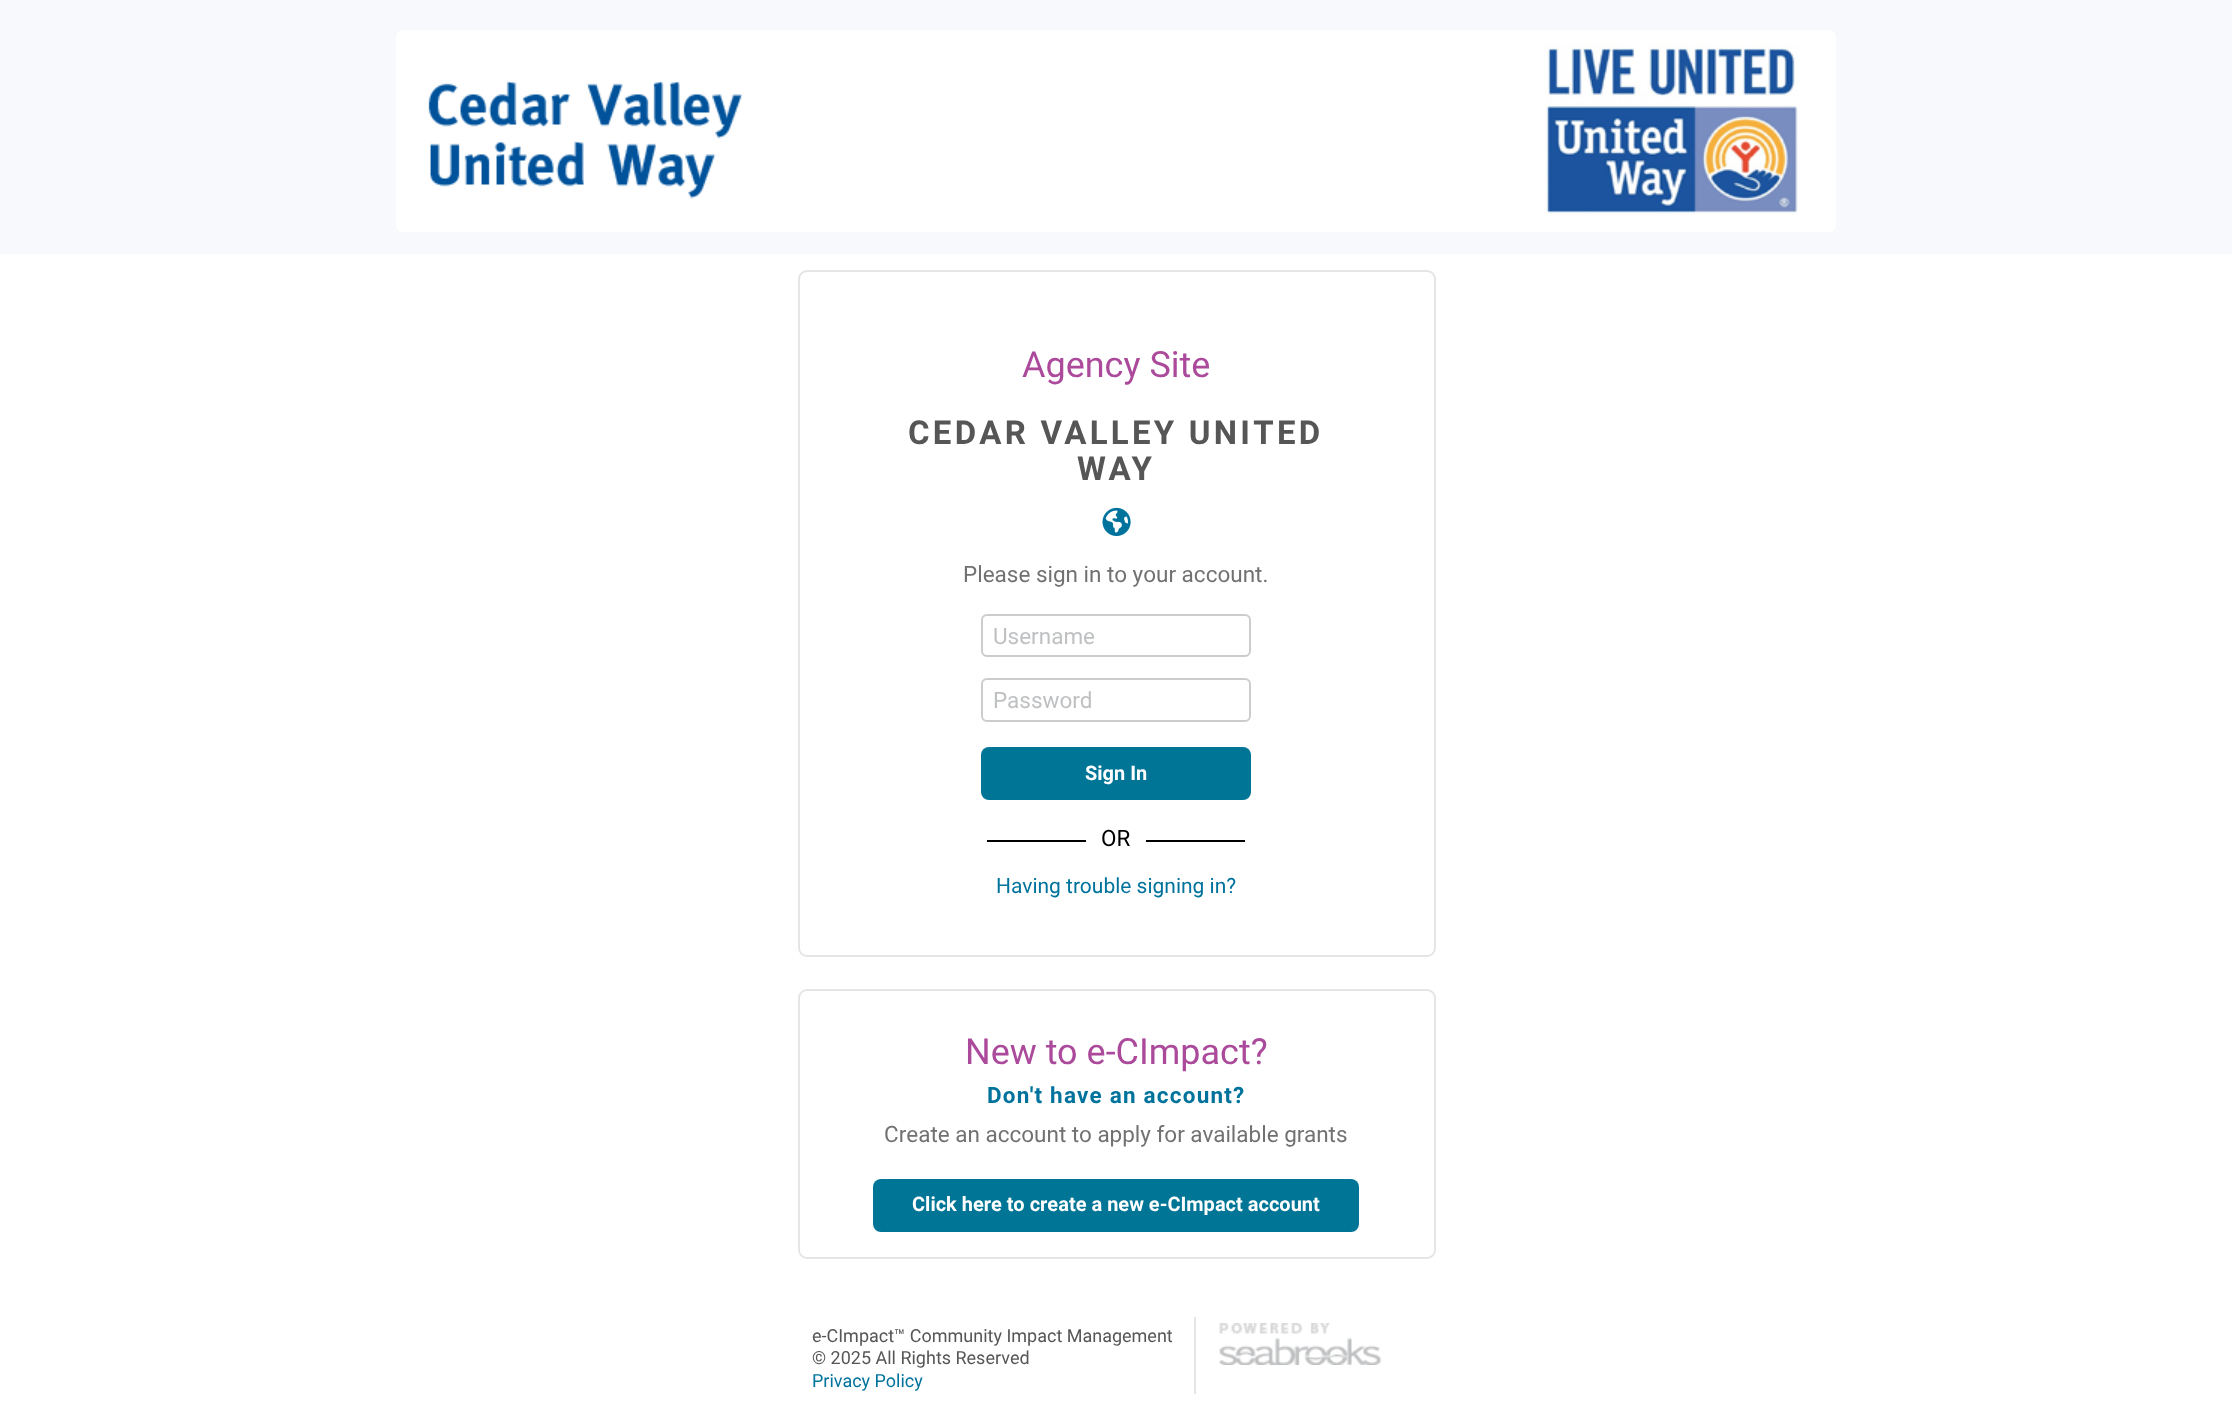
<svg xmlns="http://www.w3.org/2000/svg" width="2232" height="1421">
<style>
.a{font:36px Roboto;fill:#ab499b}
.b{font:bold 33px Roboto;letter-spacing:3.25px;fill:#565656}
.c{font:22.5px Roboto;fill:#717171}
.d{font:22.5px Roboto;fill:#bfc0c2}
.e{font:bold 20px Roboto;fill:#fff}
.f{font:22.5px Roboto;fill:#000}
.g{font:21px Roboto;fill:#00739d}
.h{font:bold 22.5px Roboto;letter-spacing:1.2px;fill:#00739d}
.i{font:18px Roboto;fill:#565656}
.j{font:18px Roboto;fill:#00739d}
</style>
<rect width="100%" height="100%" fill="#fff"/>
<path fill="#f8f9fc" d="M0 0h2232v254H0z"/>
<image href="1.png" x="396" y="30" width="1440" height="202"/>
<rect fill="none" stroke="#e5e5e5" stroke-width="2" x="799" y="271" width="636" height="685" rx="8"/>
<image href="2.png" x="1102" y="507" width="29" height="29"/>
<rect fill="none" stroke="#ccc" stroke-width="2" x="982" y="615" width="268" height="41" rx="5"/>
<rect fill="none" stroke="#ccc" stroke-width="2" x="982" y="679" width="268" height="42" rx="5"/>
<rect fill="#007596" x="981" y="747" width="270" height="53" rx="8"/>
<path fill="#000" d="M987 840h258v2H987z"/>
<path fill="#fff" d="M1086 840h60v2H1086z"/>
<rect fill="none" stroke="#e5e5e5" stroke-width="2" x="799" y="990" width="636" height="268" rx="8"/>
<rect fill="#007596" x="873" y="1179" width="486" height="53" rx="8"/>
<path fill="#e5e5e5" d="M1194 1317h2v77H1194z"/>
<image href="3.png" x="1219" y="1323" width="163" height="42"/>
<text class="a" x="1022" y="377">Agency Site</text>
<text class="b" x="908" y="444">CEDAR VALLEY UNITED</text>
<text class="b" x="1077" y="480">WAY</text>
<text class="c" x="963" y="582">Please sign in to your account.</text>
<text class="d" x="993" y="644">Username</text>
<text class="d" x="993" y="708">Password</text>
<text class="e" x="1085" y="780">Sign In</text>
<text class="f" x="1101" y="846">OR</text>
<text class="g" x="996" y="893">Having trouble signing in?</text>
<text class="a" x="965" y="1064">New to e-CImpact?</text>
<text class="h" x="987" y="1103">Don't have an account?</text>
<text class="c" x="884" y="1142">Create an account to apply for available grants</text>
<text class="e" x="912" y="1211">Click here to create a new e-CImpact account</text>
<text class="i" x="812" y="1342">e-CImpact™ Community Impact Management</text>
<text class="i" x="812" y="1364">© 2025 All Rights Reserved</text>
<text class="j" x="812" y="1387">Privacy Policy</text>
</svg>
